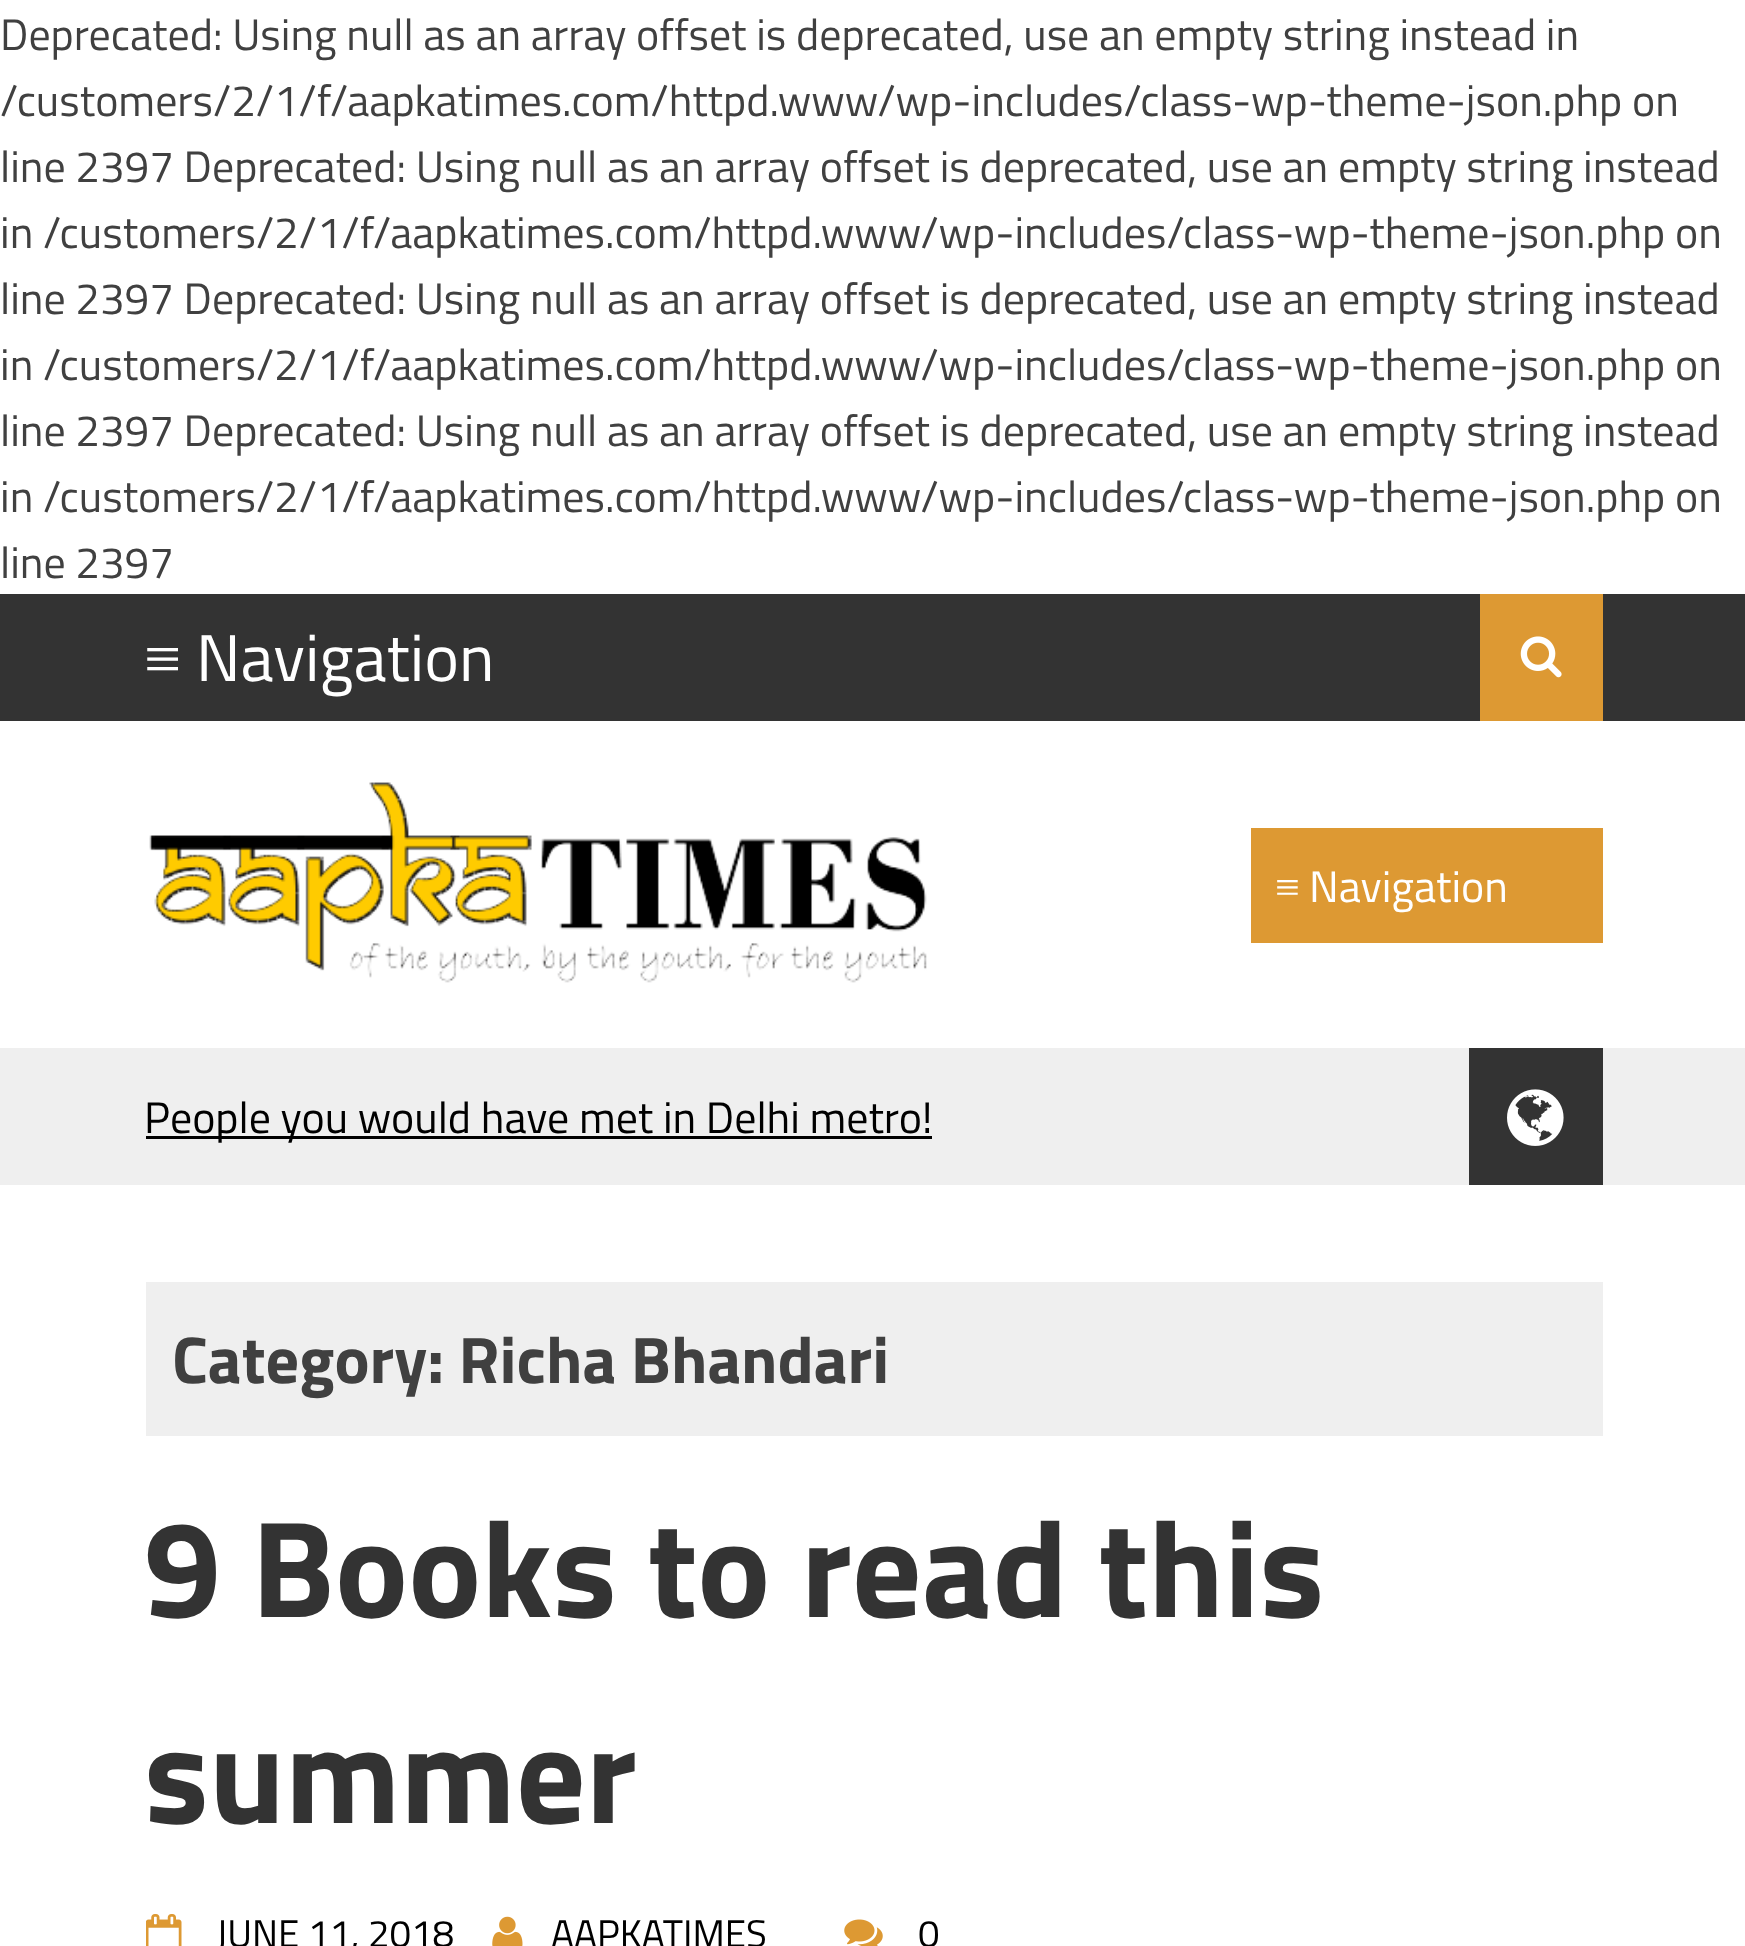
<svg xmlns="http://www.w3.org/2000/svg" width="1745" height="1946">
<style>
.a{font:44px Titillium Web;fill:#404040}
.b{font:66px Liberation Serif;fill:#fff}
.c{font:66px Titillium Web;fill:#fff}
.d{font:44px Liberation Serif;fill:#fff}
.e{font:44px Titillium Web;fill:#fff}
.f{font:44px Titillium Web;fill:#000}
.g{font:bold 66px Titillium Web;fill:#404040}
.h{font:bold 137.5px Titillium Web;fill:#333}
.i{font:38.5px Titillium Web;fill:#000}
</style>
<rect width="100%" height="100%" fill="#fff"/>
<path fill="#333" d="M0 594h1745v127H0z"/>
<path fill="#d93" d="M1480 594h123v127H1480z"/>
<image href="1.png" x="1520" y="636" width="42" height="42"/>
<image href="2.png" x="149" y="782" width="778" height="201"/>
<path fill="#d93" d="M1251 828h352v115H1251z"/>
<path fill="#efefef" d="M0 1048h1745v137H0z"/>
<path fill="#000" d="M146 1136h786v3H146z"/>
<path fill="#333" d="M1469 1048h134v137H1469z"/>
<image href="3.png" x="1507" y="1089" width="57" height="57"/>
<path fill="#efefef" d="M146 1282h1457v154H146z"/>
<image href="4.png" x="146" y="1914" width="36" height="32"/>
<image href="5.png" x="492" y="1916" width="31" height="30"/>
<image href="6.png" x="844" y="1919" width="39" height="27"/>
<text class="a" x="0" y="50">Deprecated: Using null as an array offset is deprecated, use an empty string instead in</text>
<text class="a" x="0" y="116">/customers/2/1/f/aapkatimes.com/httpd.www/wp-includes/class-wp-theme-json.php on</text>
<text class="a" x="0" y="182">line 2397 Deprecated: Using null as an array offset is deprecated, use an empty string instead</text>
<text class="a" x="0" y="248">in /customers/2/1/f/aapkatimes.com/httpd.www/wp-includes/class-wp-theme-json.php on</text>
<text class="a" x="0" y="314">line 2397 Deprecated: Using null as an array offset is deprecated, use an empty string instead</text>
<text class="a" x="0" y="380">in /customers/2/1/f/aapkatimes.com/httpd.www/wp-includes/class-wp-theme-json.php on</text>
<text class="a" x="0" y="446">line 2397 Deprecated: Using null as an array offset is deprecated, use an empty string instead</text>
<text class="a" x="0" y="512">in /customers/2/1/f/aapkatimes.com/httpd.www/wp-includes/class-wp-theme-json.php on</text>
<text class="a" x="0" y="578">line 2397</text>
<text class="b" x="144" y="681">≡</text>
<text class="c" x="196" y="681">Navigation</text>
<text class="d" x="1275" y="902">≡</text>
<text class="e" x="1309" y="902">Navigation</text>
<text class="f" x="144" y="1133">People you would have met in Delhi metro!</text>
<text class="g" x="172" y="1383">Category: Richa Bhandari</text>
<text class="h" x="144" y="1617">9 Books to read this</text>
<text class="h" x="144" y="1823">summer</text>
<text class="i" x="216" y="1947">JUNE 11, 2018</text>
<text class="i" x="551" y="1947">AAPKATIMES</text>
<text class="i" x="918" y="1947">0</text>
</svg>
